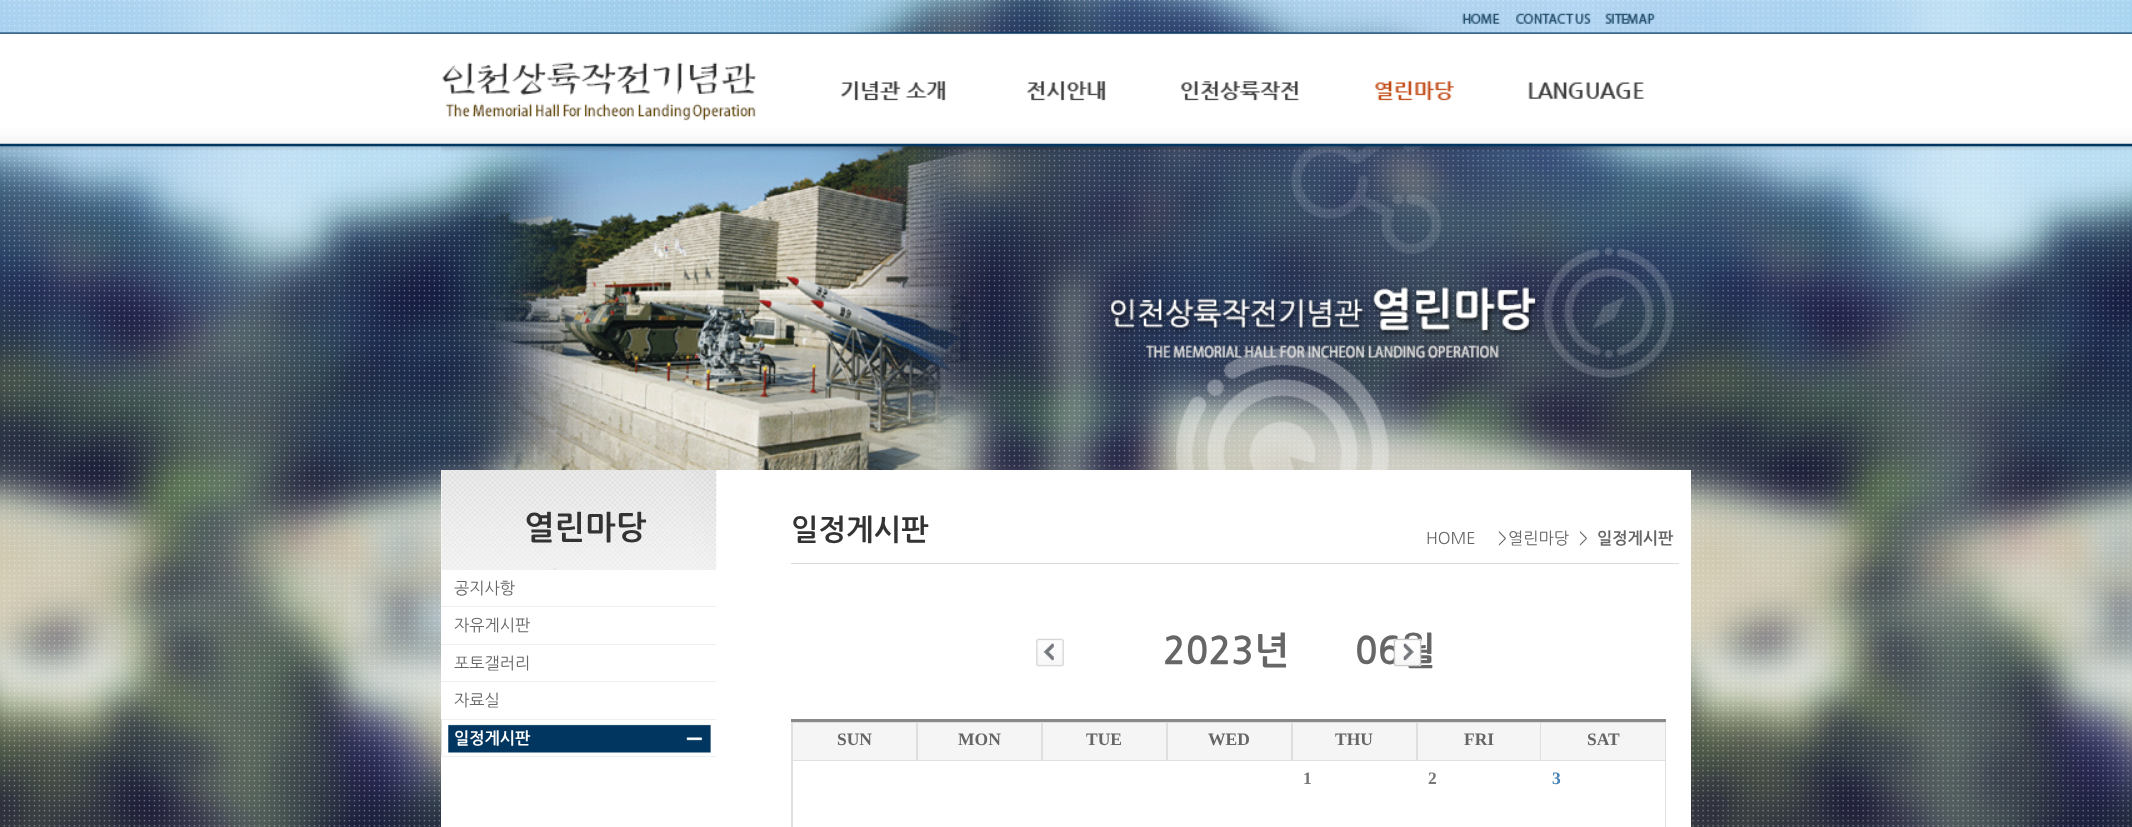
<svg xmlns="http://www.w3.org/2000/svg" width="2132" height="827">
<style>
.a{font:bold 32.5px NanumGothic;fill:#333}
.b{font:16.25px NanumGothic;fill:#666}
.c{font:bold 16.25px NanumGothic;fill:#fff}
.d{font:bold 29.25px NanumGothic;fill:#333}
.e{font:bold 16.25px NanumGothic;fill:#666}
.f{font:bold 37.5px NanumGothic;fill:#666}
.g{font:bold 17.5px Liberation Serif;fill:#666}
.h{font:bold 17.5px Liberation Serif;fill:#777}
.i{font:bold 17.5px Liberation Serif;fill:#4682b4}
</style>
<rect width="100%" height="100%" fill="#fff"/>
<image href="1.png" x="0" y="0" width="2132" height="827"/>
<image href="12.png" x="441" y="146" width="1250" height="324"/>
<image href="2.png" x="0" y="32" width="2132" height="119"/>
<image href="3.png" x="1462" y="13" width="39" height="11"/>
<image href="4.png" x="1516" y="13" width="75" height="11"/>
<image href="5.png" x="1605" y="13" width="51" height="11"/>
<image href="6.png" x="442" y="62" width="314" height="59"/>
<image href="7.png" x="841" y="81" width="105" height="20"/>
<image href="8.png" x="1026" y="81" width="80" height="20"/>
<image href="9.png" x="1181" y="81" width="118" height="20"/>
<image href="10.png" x="1374" y="81" width="80" height="20"/>
<image href="11.png" x="1528" y="82" width="116" height="17"/>
<path fill="#fff" d="M441 470h1250v357H441z"/>
<image href="13.png" x="441" y="470" width="276" height="100"/>
<path fill="#efefef" d="M441 606h275v1H441z"/>
<path fill="#efefef" d="M441 644h275v1H441z"/>
<path fill="#efefef" d="M441 681h275v1H441z"/>
<path fill="#efefef" d="M441 719h275v1H441z"/>
<image href="14.png" x="441" y="720" width="270" height="38"/>
<path fill="#efefef" d="M441 756h275v1H441z"/>
<path fill="#d7dade" d="M791 563h888v1H791z"/>
<image href="15.png" x="1036" y="638" width="28" height="29"/>
<path fill="#dfdfdf" d="M791 722h875v105H791z"/>
<path fill="#898989" d="M791 719h875v3H791z"/>
<path fill="#f5f5f5" d="M793 723h123v37H793z"/>
<path fill="#f5f5f5" d="M918 723h123v37H918z"/>
<path fill="#f5f5f5" d="M1043 723h123v37H1043z"/>
<path fill="#f5f5f5" d="M1168 723h123v37H1168z"/>
<path fill="#f5f5f5" d="M1293 723h123v37H1293z"/>
<path fill="#f5f5f5" d="M1418 723h122v37H1418z"/>
<path fill="#f5f5f5" d="M1541 723h124v37H1541z"/>
<path fill="#fff" d="M793 761h872v66H793z"/>
<text class="a" x="524" y="539">열린마당</text>
<text class="b" x="454" y="594">공지사항</text>
<text class="b" x="454" y="631">자유게시판</text>
<text class="b" x="454" y="669">포토갤러리</text>
<text class="b" x="454" y="706">자료실</text>
<text class="c" x="454" y="744">일정게시판</text>
<text class="d" x="791" y="540">일정게시판</text>
<text class="b" x="1426" y="544" word-spacing="-1">HOME</text>
<text class="b" x="1498" y="544" word-spacing="-1">&gt;</text>
<text class="b" x="1508" y="544">열린마당</text>
<text class="b" x="1579" y="544">&gt;</text>
<text class="e" x="1597" y="544">일정게시판</text>
<text class="f" x="1163" y="664">2023년</text>
<text class="f" x="1355" y="664">06월</text>
<image href="16.png" x="1393" y="638" width="29" height="29"/>
<text class="g" x="837" y="745">SUN</text>
<text class="g" x="958" y="745">MON</text>
<text class="g" x="1086" y="745">TUE</text>
<text class="g" x="1208" y="745">WED</text>
<text class="g" x="1335" y="745">THU</text>
<text class="g" x="1464" y="745">FRI</text>
<text class="g" x="1587" y="745">SAT</text>
<text class="h" x="1303" y="784">1</text>
<text class="h" x="1428" y="784">2</text>
<text class="i" x="1552" y="784">3</text>
</svg>
